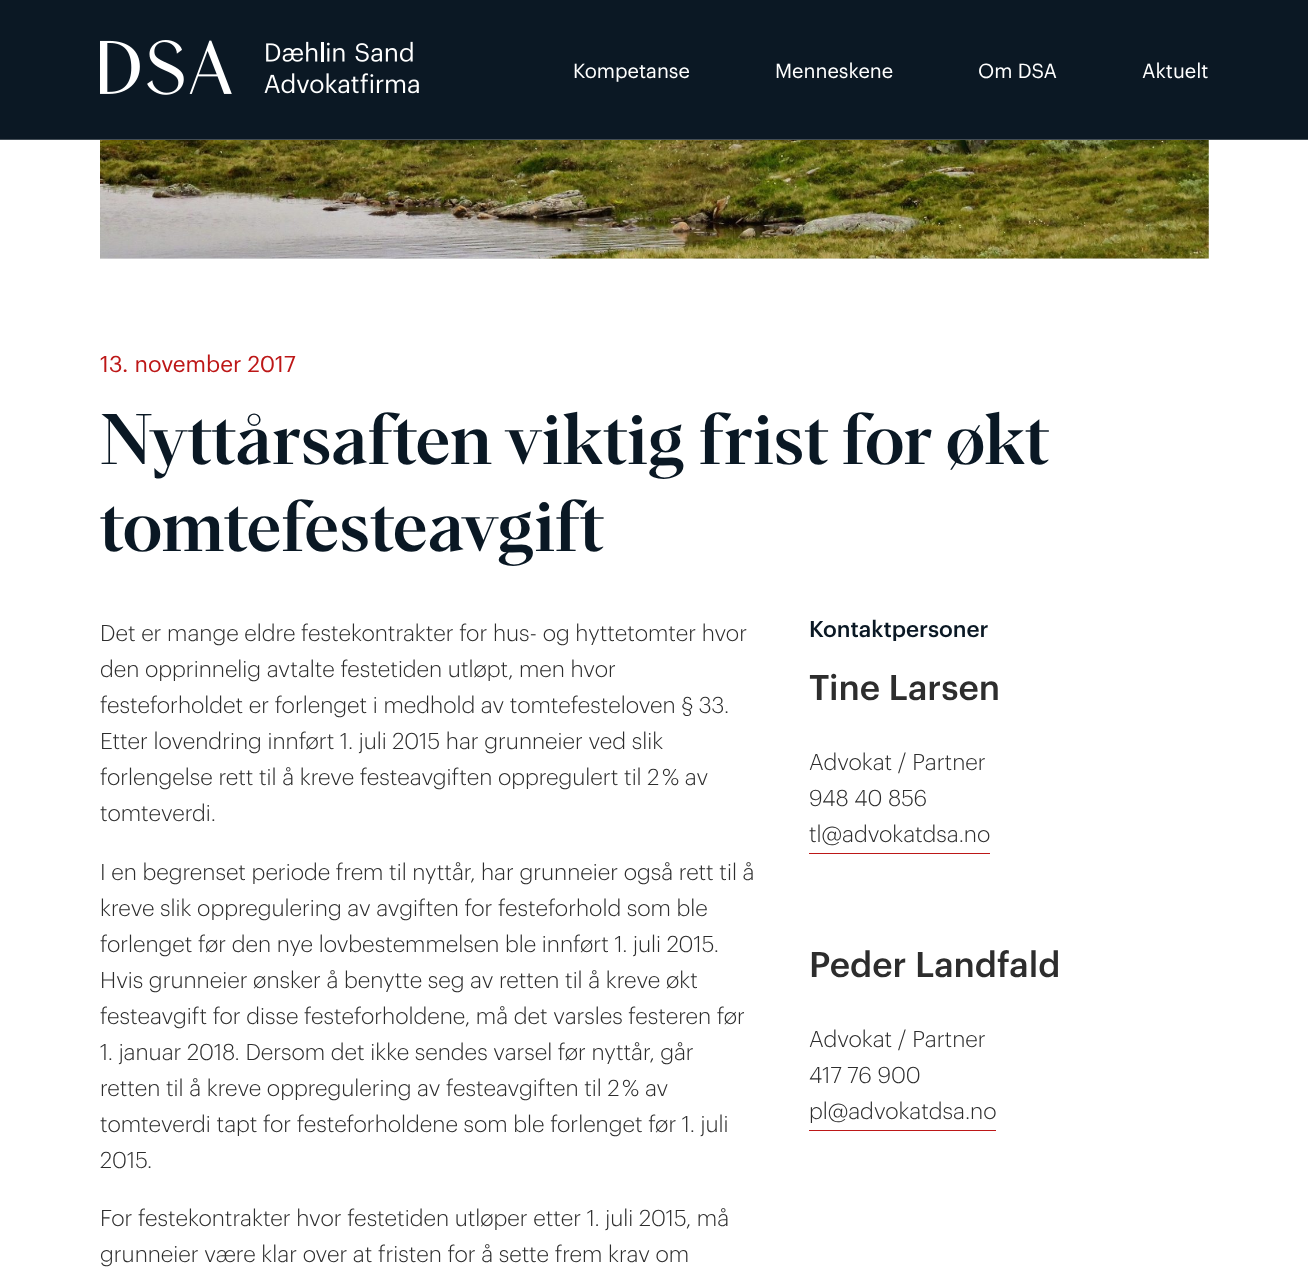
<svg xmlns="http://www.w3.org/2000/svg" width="1308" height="1279">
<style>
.a{font:20px Graphik;fill:#fff}
.b{font:22.5px Graphik;fill:#bd1717}
.c{font:500 70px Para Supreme;fill:#0a1824}
.d{font:300 22.5px Graphik;fill:#2d2d2d}
.e{font:500 22.5px Graphik;fill:#0a1824}
.f{font:500 35px Graphik;fill:#2d2d2d}
</style>
<rect width="100%" height="100%" fill="#fff"/>
<path fill="#0b1824" d="M0 0h1308v139H0z"/>
<path fill="#434d56" d="M0 139h1308v1H0z"/>
<image href="1.png" x="100" y="40" width="319" height="55"/>
<path fill="#ececec" d="M100 140h1109v119H100z"/>
<image href="2.png" x="100" y="140" width="1109" height="119"/>
<path fill="#bd1717" d="M809 853h181v1H809z"/>
<path fill="#bd1717" d="M809 1130h187v1H809z"/>
<text class="a" x="573" y="78">Kompetanse</text>
<text class="a" x="775" y="78">Menneskene</text>
<text class="a" x="978" y="78">Om DSA</text>
<text class="a" x="1142" y="78">Aktuelt</text>
<text class="b" x="100" y="372">13. november 2017</text>
<text class="c" x="100" y="464">Nyttårsaften viktig frist for økt</text>
<text class="c" x="100" y="551">tomtefesteavgift</text>
<text class="d" x="100" y="641">Det er mange eldre festekontrakter for hus- og hyttetomter hvor</text>
<text class="d" x="100" y="677">den opprinnelig avtalte festetiden utløpt, men hvor</text>
<text class="d" x="100" y="713">festeforholdet er forlenget i medhold av tomtefesteloven § 33.</text>
<text class="d" x="100" y="749">Etter lovendring innført 1. juli 2015 har grunneier ved slik</text>
<text class="d" x="100" y="785">forlengelse rett til å kreve festeavgiften oppregulert til 2 % av</text>
<text class="d" x="100" y="821">tomteverdi.</text>
<text class="d" x="100" y="880">I en begrenset periode frem til nyttår, har grunneier også rett til å</text>
<text class="d" x="100" y="916">kreve slik oppregulering av avgiften for festeforhold som ble</text>
<text class="d" x="100" y="952">forlenget før den nye lovbestemmelsen ble innført 1. juli 2015.</text>
<text class="d" x="100" y="988">Hvis grunneier ønsker å benytte seg av retten til å kreve økt</text>
<text class="d" x="100" y="1024">festeavgift for disse festeforholdene, må det varsles festeren før</text>
<text class="d" x="100" y="1060">1. januar 2018. Dersom det ikke sendes varsel før nyttår, går</text>
<text class="d" x="100" y="1096">retten til å kreve oppregulering av festeavgiften til 2 % av</text>
<text class="d" x="100" y="1132">tomteverdi tapt for festeforholdene som ble forlenget før 1. juli</text>
<text class="d" x="100" y="1168">2015.</text>
<text class="d" x="100" y="1226">For festekontrakter hvor festetiden utløper etter 1. juli 2015, må</text>
<text class="d" x="100" y="1262">grunneier være klar over at fristen for å sette frem krav om</text>
<text class="e" x="809" y="637">Kontaktpersoner</text>
<text class="f" x="809" y="700">Tine Larsen</text>
<text class="d" x="809" y="770">Advokat / Partner</text>
<text class="d" x="809" y="806">948 40 856</text>
<text class="d" x="809" y="842">tl@advokatdsa.no</text>
<text class="f" x="809" y="977">Peder Landfald</text>
<text class="d" x="809" y="1047">Advokat / Partner</text>
<text class="d" x="809" y="1083">417 76 900</text>
<text class="d" x="809" y="1119">pl@advokatdsa.no</text>
</svg>
